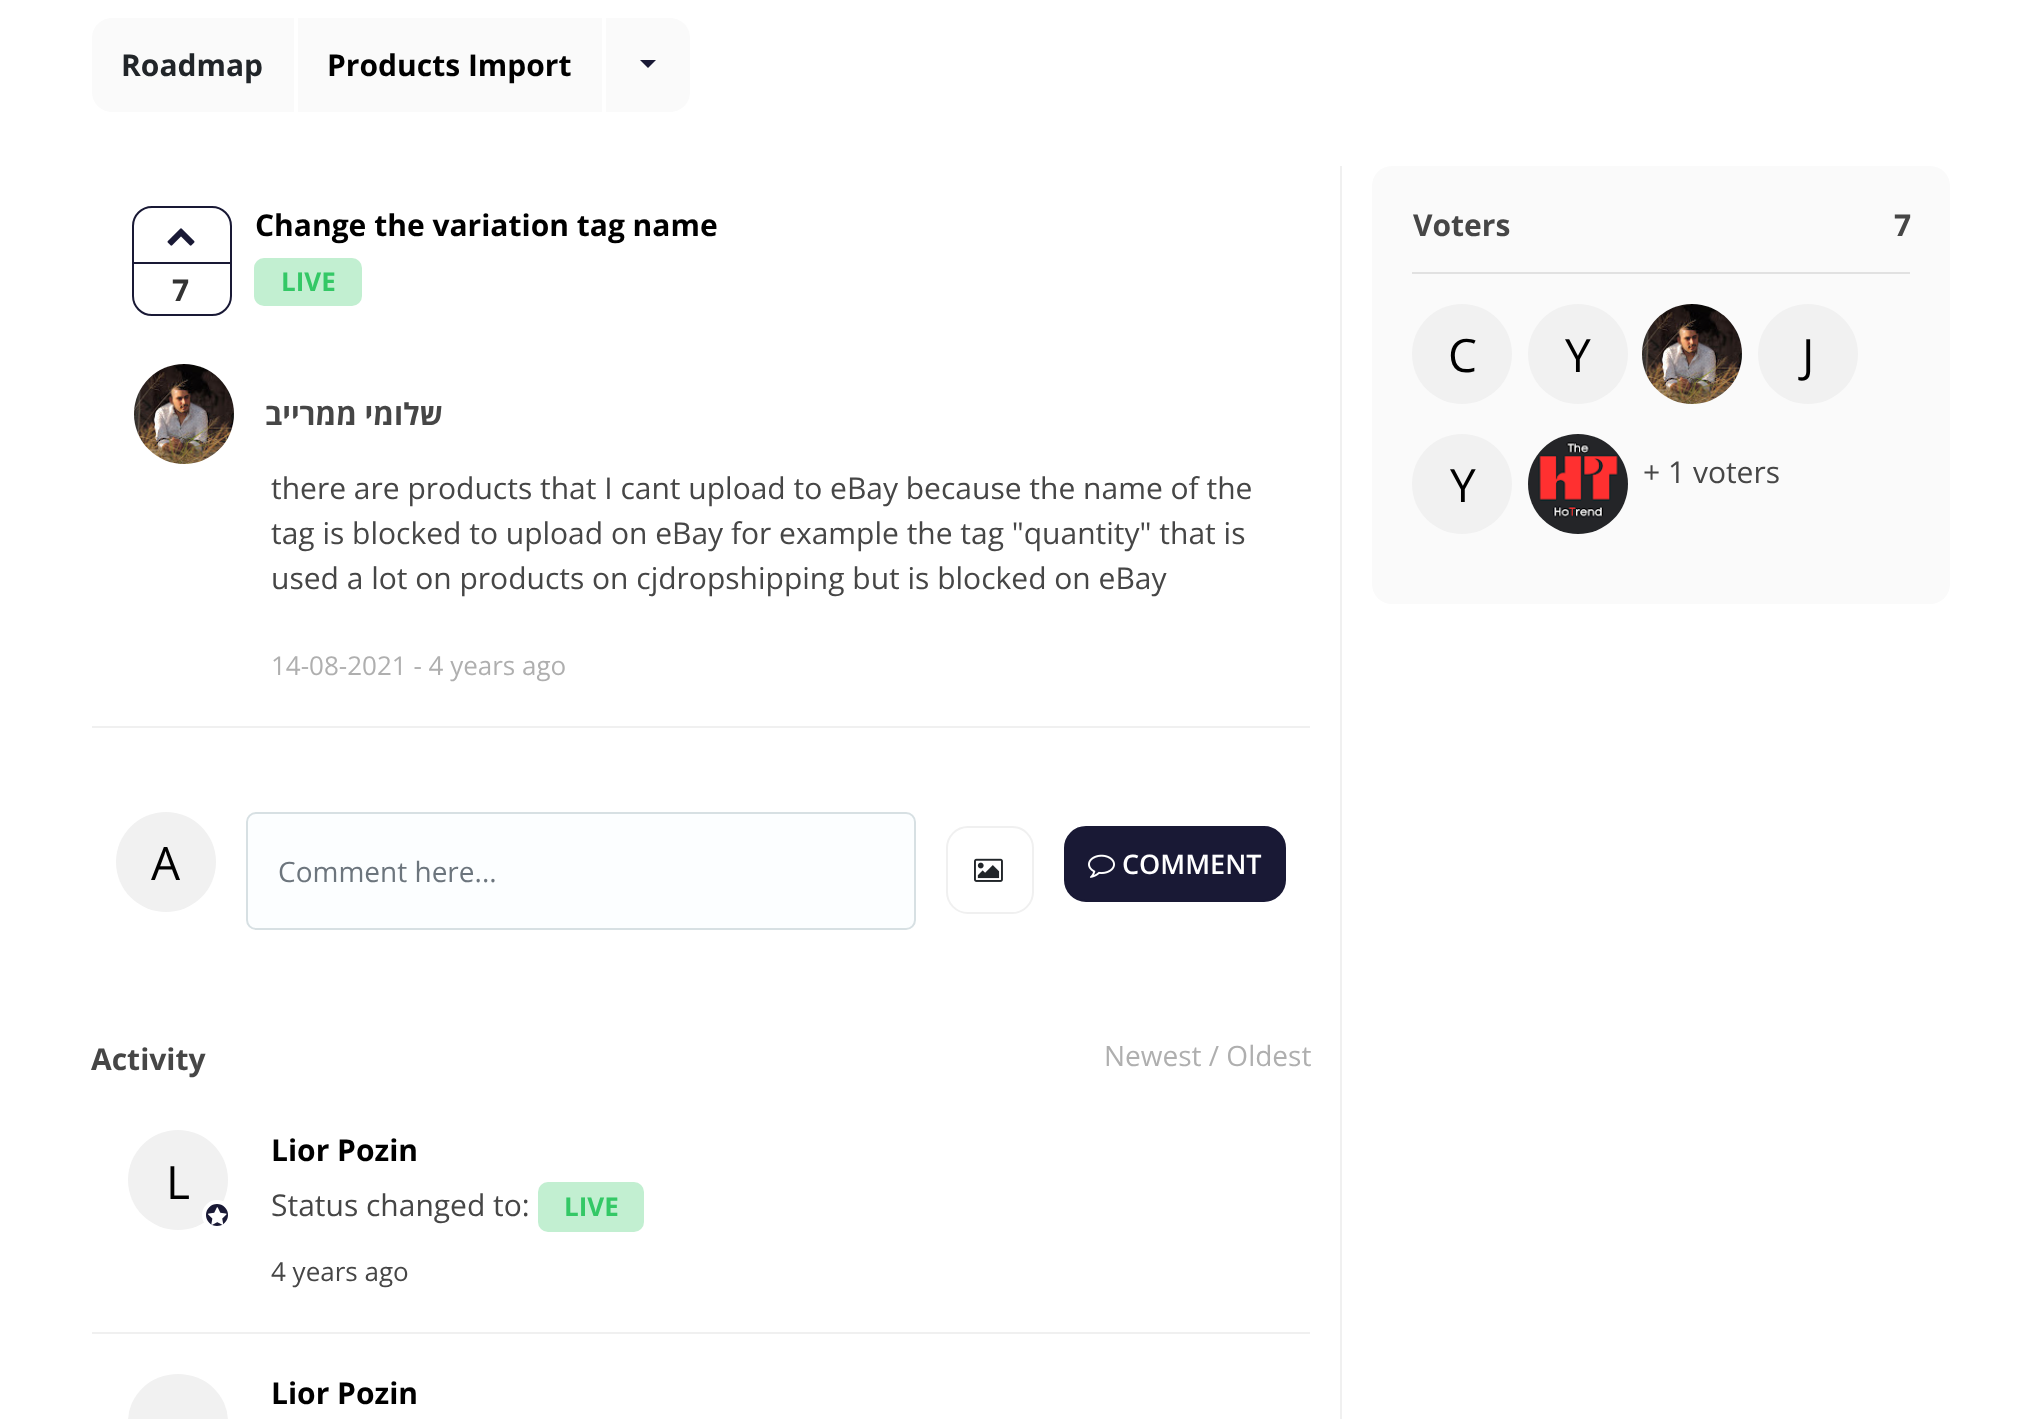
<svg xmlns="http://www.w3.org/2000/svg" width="2042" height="1419">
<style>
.a{font:bold 30px Open Sans;fill:#212529}
.b{font:bold 30px Open Sans;fill:#000}
.c{font:bold 30px Open Sans;fill:#333}
.d{font:bold 26px Open Sans;fill:#34c866}
.e{font:bold 30px Open Sans;direction:rtl;fill:#464646}
.f{font:30px Open Sans;fill:#464646}
.g{font:26px Open Sans;fill:#afafaf}
.h{font:46px Open Sans;fill:#000}
.i{font:28px Open Sans;fill:#6c757d}
.j{font:600 27px Open Sans;fill:#fff}
.k{font:bold 30px Open Sans;fill:#464646}
.l{font:28px Open Sans;fill:#afafaf}
.m{font:26px Open Sans;fill:#464646}
</style>
<rect width="100%" height="100%" fill="#fff"/>
<path fill="#fafafa" d="M112 18h186v94h-186c-11 0-20-9-20-20v-54c0-11 9-20 20-20z"/>
<path fill="#fff" d="M294 18h4v94H294z"/>
<path fill="#fafafa" d="M298 18h304v94H298z"/>
<path fill="#fafafa" d="M606 18h64c11 0 20 9 20 20v54c0 11-9 20-20 20h-64z"/>
<path fill="#191935" d="M640 60h16l-8 8z"/>
<path fill="#f0f0f0" d="M92 726h1218v2H92z"/>
<rect fill="none" stroke="#191935" stroke-width="2" x="133" y="207" width="98" height="108" rx="19"/>
<image href="1.png" x="167" y="228" width="28" height="18"/>
<path fill="#191935" d="M134 262h96v2H134z"/>
<rect fill="#c2efd1" x="254" y="258" width="108" height="48" rx="10"/>
<image href="2.png" x="134" y="364" width="100" height="100"/>
<circle fill="#f1f1f1" cx="166" cy="862" r="50"/>
<rect fill="#fcfeff" stroke="#d7e0e3" stroke-width="2" x="247" y="813" width="668" height="116" rx="9"/>
<rect fill="none" stroke="#f0f0f0" stroke-width="2" x="947" y="827" width="86" height="86" rx="21"/>
<image href="3.png" x="974" y="858" width="29" height="24"/>
<rect fill="#191935" stroke="#191935" stroke-width="2" x="1065" y="827" width="220" height="74" rx="21"/>
<image href="4.png" x="1088" y="854" width="27" height="24"/>
<path fill="#f0f0f0" d="M92 1332h1218v2H92z"/>
<circle fill="#f1f1f1" cx="178" cy="1180" r="50"/>
<circle fill="#191935" stroke="#fff" stroke-width="4" cx="217" cy="1215" r="13"/>
<image href="5.png" x="208" y="1207" width="19" height="18"/>
<rect fill="#c2efd1" x="538" y="1182" width="106" height="50" rx="10"/>
<rect fill="#f1f1f1" x="128" y="1374" width="100" height="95" rx="50"/>
<path fill="#f0f0f0" d="M1340 166h2v1253H1340z"/>
<rect fill="#fafafa" x="1372" y="166" width="578" height="438" rx="20"/>
<path fill="#e1e1e1" d="M1412 272h498v2H1412z"/>
<circle fill="#f1f1f1" cx="1462" cy="354" r="50"/>
<circle fill="#f1f1f1" cx="1578" cy="354" r="50"/>
<image href="6.png" x="1642" y="304" width="100" height="100"/>
<circle fill="#f1f1f1" cx="1808" cy="354" r="50"/>
<circle fill="#f1f1f1" cx="1462" cy="484" r="50"/>
<image href="7.png" x="1528" y="434" width="100" height="100"/>
<text class="a" x="121" y="76">Roadmap</text>
<text class="b" x="327" y="76">Products Import</text>
<text class="c" x="172" y="301">7</text>
<text class="b" x="255" y="236">Change the variation tag name</text>
<text class="d" x="281" y="291">LIVE</text>
<text class="e" x="443" y="425">שלומי ממרייב</text>
<text class="f" x="271" y="499">there are products that I cant upload to eBay because the name of the</text>
<text class="f" x="271" y="544">tag is blocked to upload on eBay for example the tag "quantity" that is</text>
<text class="f" x="271" y="589">used a lot on products on cjdropshipping but is blocked on eBay</text>
<text class="g" x="271" y="675">14-08-2021 - 4 years ago</text>
<text class="h" x="151" y="880">A</text>
<text class="i" x="278" y="882">Comment here...</text>
<text class="j" x="1122" y="874">COMMENT</text>
<text class="k" x="91" y="1070">Activity</text>
<text class="l" x="1104" y="1066">Newest / Oldest</text>
<text class="h" x="166" y="1199">L</text>
<text class="b" x="271" y="1161">Lior Pozin</text>
<text class="f" x="271" y="1216">Status changed to:</text>
<text class="d" x="564" y="1216">LIVE</text>
<text class="m" x="271" y="1281">4 years ago</text>
<text class="b" x="271" y="1404">Lior Pozin</text>
<text class="k" x="1413" y="236">Voters</text>
<text class="k" x="1894" y="236">7</text>
<text class="h" x="1448" y="372">C</text>
<text class="h" x="1565" y="372">Y</text>
<text class="h" x="1802" y="372">J</text>
<text class="h" x="1450" y="502">Y</text>
<text class="f" x="1643" y="483">+ 1 voters</text>
</svg>
